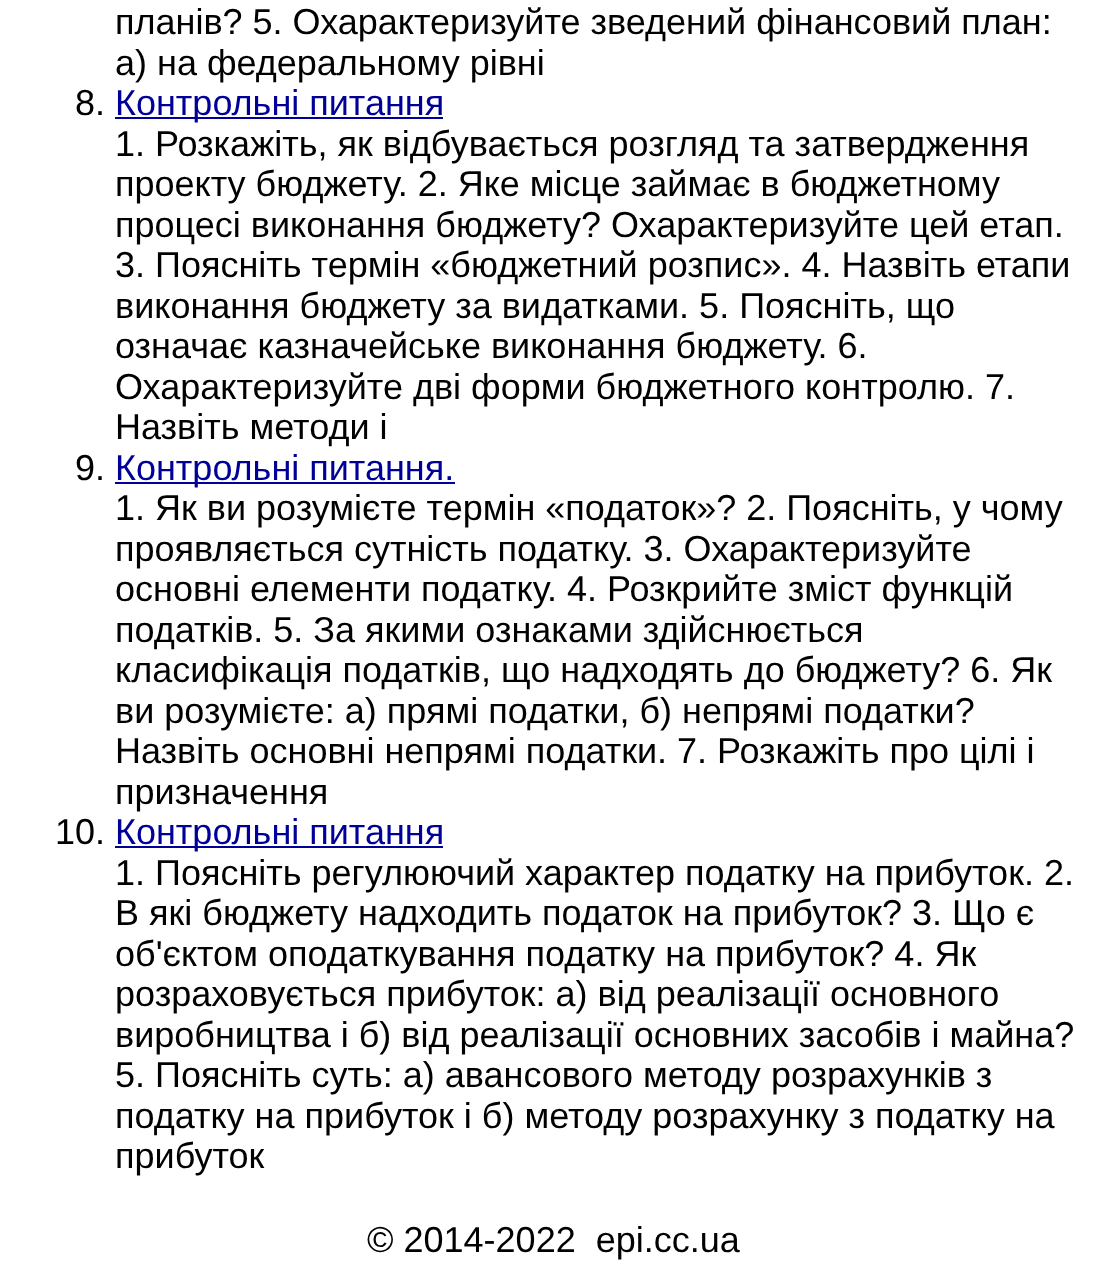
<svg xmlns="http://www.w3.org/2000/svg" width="1106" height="1276">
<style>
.a{font:36px Liberation Sans;fill:#000}
.b{font:36px Liberation Sans;fill:#009}
</style>
<rect width="100%" height="100%" fill="#fff"/>
<path fill="#009" d="M115 117h328v2H115z"/>
<path fill="#009" d="M115 482h340v2H115z"/>
<path fill="#009" d="M115 846h328v2H115z"/>
<text class="a" x="115" y="34">планів? 5. Охарактеризуйте зведений фінансовий план:</text>
<text class="a" x="115" y="75">а) на федеральному рівні</text>
<text class="a" x="75" y="115">8.</text>
<text class="b" x="115" y="115">Контрольні питання</text>
<text class="a" x="115" y="156">1. Розкажіть, як відбувається розгляд та затвердження</text>
<text class="a" x="115" y="196">проекту бюджету. 2. Яке місце займає в бюджетному</text>
<text class="a" x="115" y="237">процесі виконання бюджету? Охарактеризуйте цей етап.</text>
<text class="a" x="115" y="277">3. Поясніть термін «бюджетний розпис». 4. Назвіть етапи</text>
<text class="a" x="115" y="318">виконання бюджету за видатками. 5. Поясніть, що</text>
<text class="a" x="115" y="358">означає казначейське виконання бюджету. 6.</text>
<text class="a" x="115" y="399">Охарактеризуйте дві форми бюджетного контролю. 7.</text>
<text class="a" x="115" y="439">Назвіть методи і</text>
<text class="a" x="75" y="480">9.</text>
<text class="b" x="115" y="480">Контрольні питання.</text>
<text class="a" x="115" y="520">1. Як ви розумієте термін «податок»? 2. Поясніть, у чому</text>
<text class="a" x="115" y="561">проявляється сутність податку. 3. Охарактеризуйте</text>
<text class="a" x="115" y="601">основні елементи податку. 4. Розкрийте зміст функцій</text>
<text class="a" x="115" y="642">податків. 5. За якими ознаками здійснюється</text>
<text class="a" x="115" y="682">класифікація податків, що надходять до бюджету? 6. Як</text>
<text class="a" x="115" y="723">ви розумієте: а) прямі податки, б) непрямі податки?</text>
<text class="a" x="115" y="763">Назвіть основні непрямі податки. 7. Розкажіть про цілі і</text>
<text class="a" x="115" y="804">призначення</text>
<text class="a" x="55" y="844">10.</text>
<text class="b" x="115" y="844">Контрольні питання</text>
<text class="a" x="115" y="885">1. Поясніть регулюючий характер податку на прибуток. 2.</text>
<text class="a" x="115" y="925">В які бюджету надходить податок на прибуток? 3. Що є</text>
<text class="a" x="115" y="966">об'єктом оподаткування податку на прибуток? 4. Як</text>
<text class="a" x="115" y="1006">розраховується прибуток: а) від реалізації основного</text>
<text class="a" x="115" y="1047">виробництва і б) від реалізації основних засобів і майна?</text>
<text class="a" x="115" y="1087">5. Поясніть суть: а) авансового методу розрахунків з</text>
<text class="a" x="115" y="1128">податку на прибуток і б) методу розрахунку з податку на</text>
<text class="a" x="115" y="1168">прибуток</text>
<text class="a" xml:space="preserve" x="367" y="1252">© 2014-2022  epi.cc.ua</text>
</svg>
